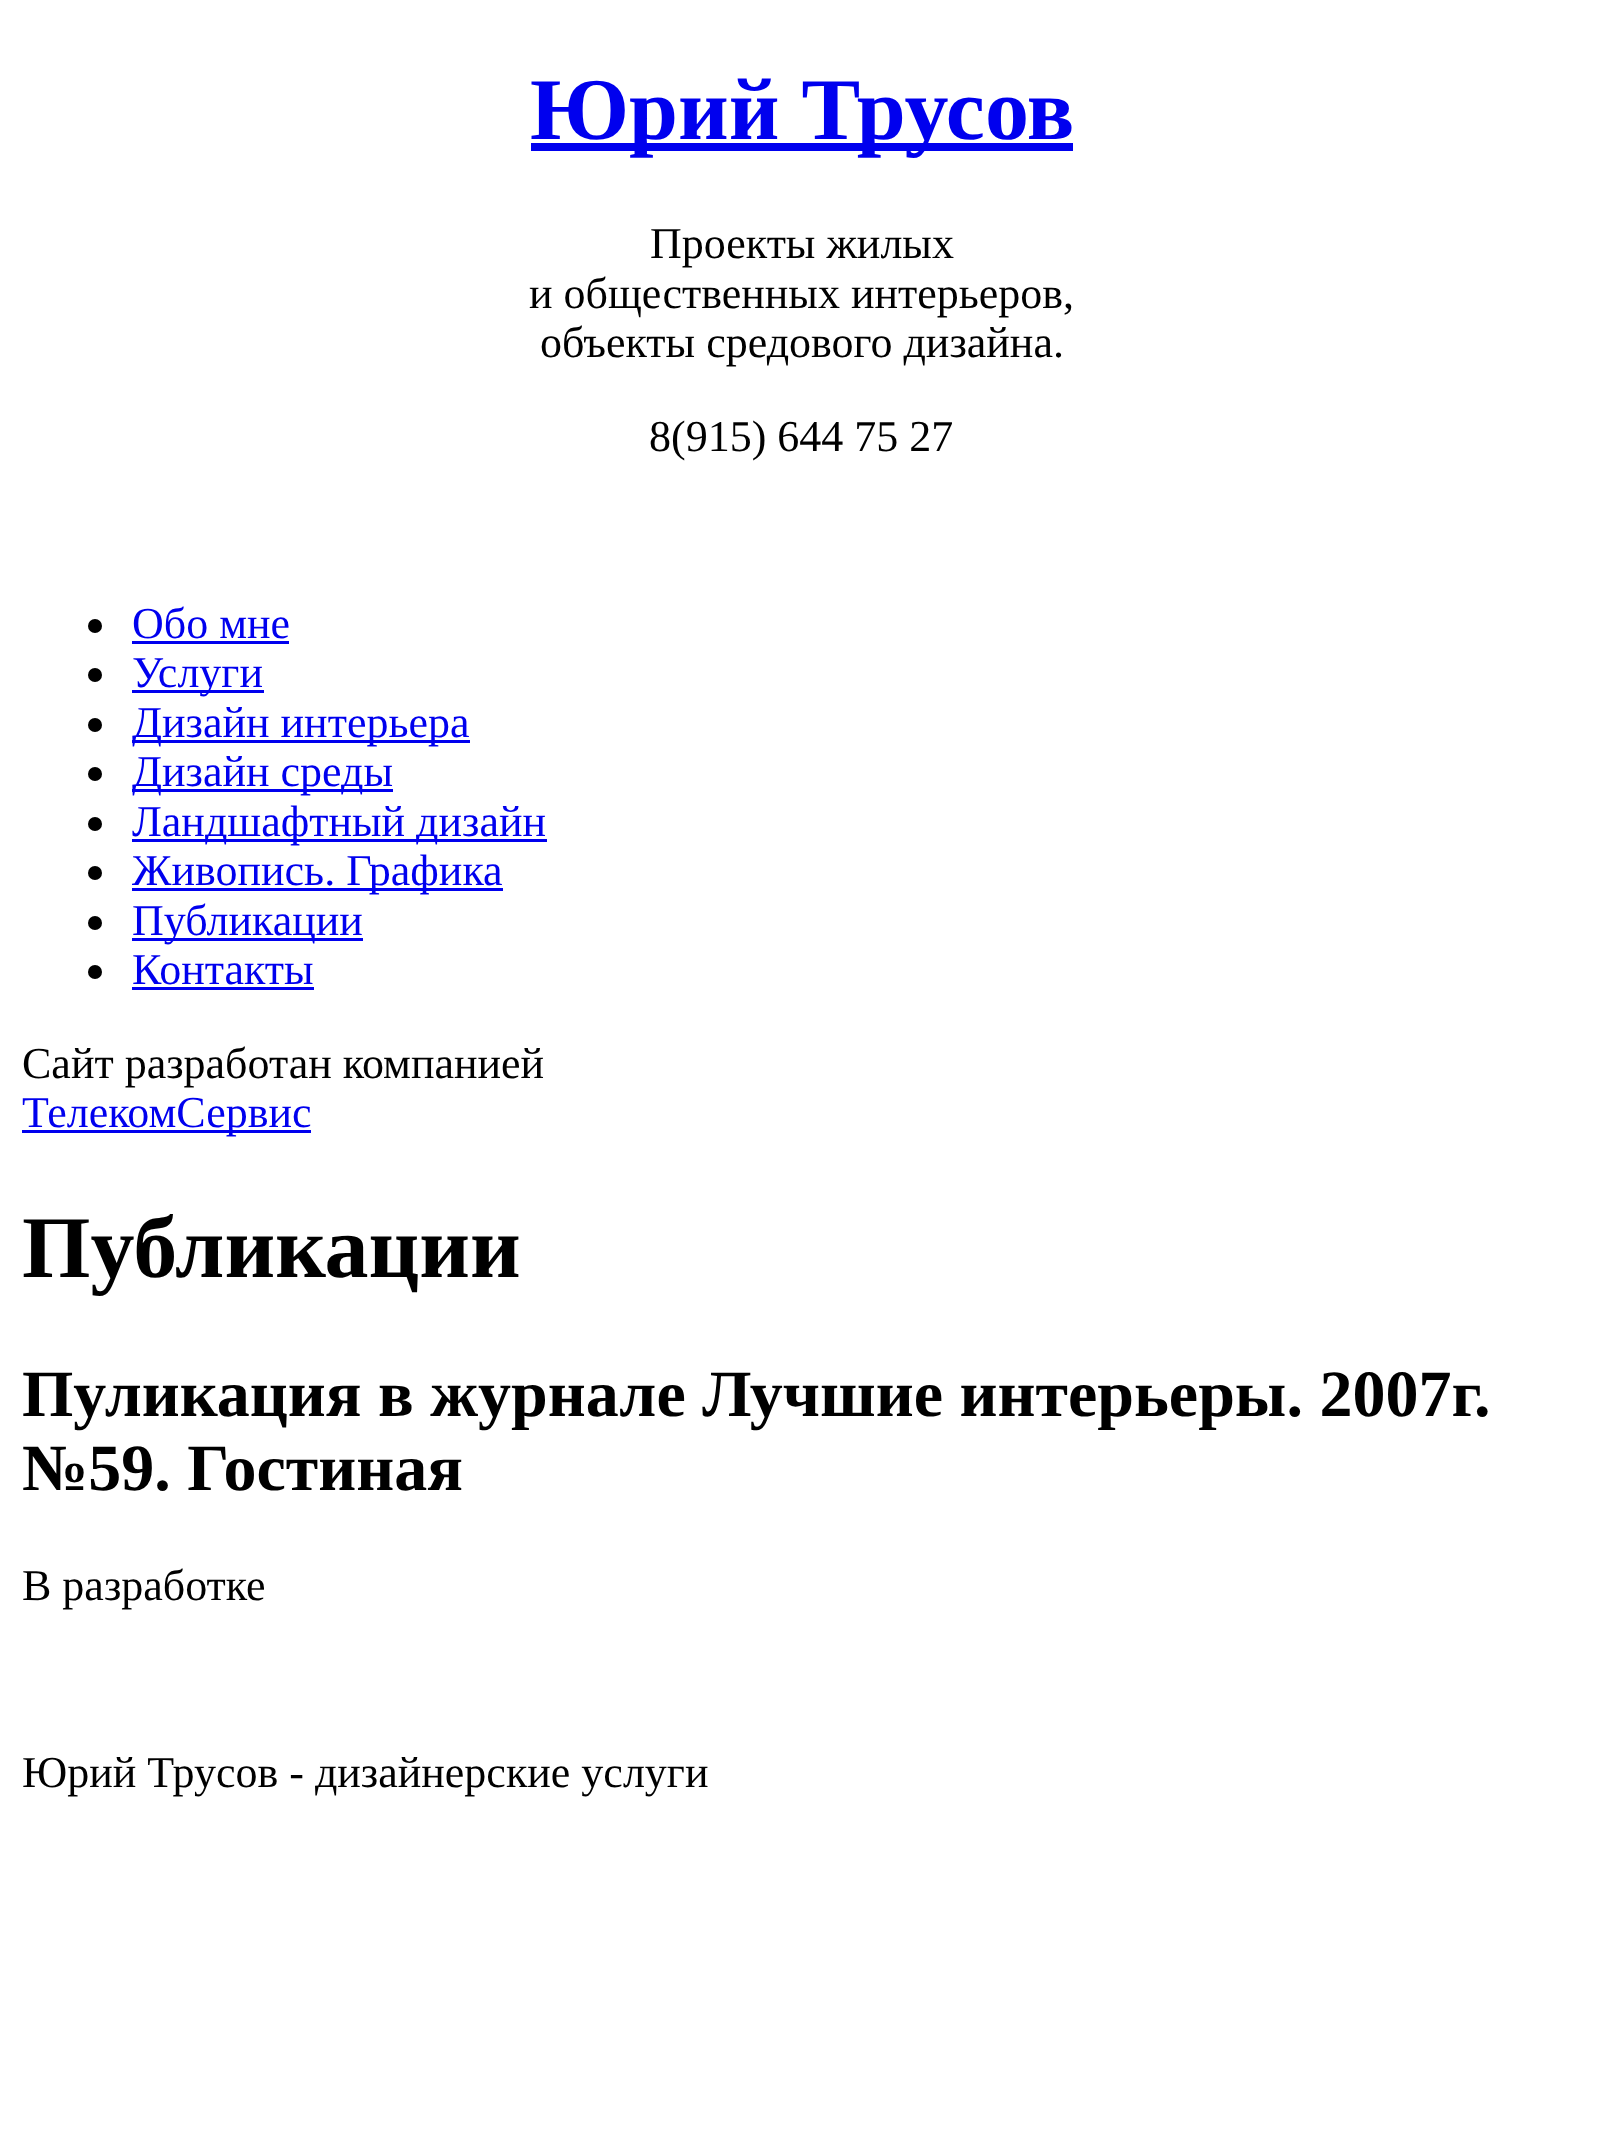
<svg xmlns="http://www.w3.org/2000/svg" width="1603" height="2152">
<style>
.a{font:bold 88px Liberation Serif;fill:#00e}
.b{font:44px Liberation Serif;fill:#000}
.c{font:44px Liberation Serif;fill:#00e}
.d{font:bold 88px Liberation Serif;fill:#000}
.e{font:bold 66px Liberation Serif;fill:#000}
</style>
<rect width="100%" height="100%" fill="#fff"/>
<path fill="#00e" d="M531 143h542v8H531z"/>
<circle fill="#000" cx="95" cy="626" r="7"/>
<path fill="#00e" d="M132 641h157v3H132z"/>
<circle fill="#000" cx="95" cy="675" r="7"/>
<path fill="#00e" d="M132 690h132v3H132z"/>
<circle fill="#000" cx="95" cy="725" r="7"/>
<path fill="#00e" d="M132 740h338v3H132z"/>
<circle fill="#000" cx="95" cy="774" r="7"/>
<path fill="#00e" d="M132 789h261v3H132z"/>
<circle fill="#000" cx="95" cy="824" r="7"/>
<path fill="#00e" d="M132 839h415v3H132z"/>
<circle fill="#000" cx="95" cy="873" r="7"/>
<path fill="#00e" d="M132 888h371v3H132z"/>
<circle fill="#000" cx="95" cy="923" r="7"/>
<path fill="#00e" d="M132 938h231v3H132z"/>
<circle fill="#000" cx="95" cy="972" r="7"/>
<path fill="#00e" d="M132 987h182v3H132z"/>
<path fill="#00e" d="M22 1130h289v3H22z"/>
<text class="a" x="530" y="139">Юрий Трусов</text>
<text class="b" x="650" y="258">Проекты жилых</text>
<text class="b" x="529" y="308">и общественных интерьеров,</text>
<text class="b" x="540" y="357">объекты средового дизайна.</text>
<text class="b" x="649" y="451">8(915) 644 75 27</text>
<text class="c" x="132" y="638">Обо мне</text>
<text class="c" x="132" y="687">Услуги</text>
<text class="c" x="132" y="737">Дизайн интерьера</text>
<text class="c" x="132" y="786">Дизайн среды</text>
<text class="c" x="132" y="836">Ландшафтный дизайн</text>
<text class="c" x="132" y="885">Живопись. Графика</text>
<text class="c" x="132" y="935">Публикации</text>
<text class="c" x="132" y="984">Контакты</text>
<text class="b" x="22" y="1078">Сайт разработан компанией</text>
<text class="c" x="22" y="1127">ТелекомСервис</text>
<text class="d" x="22" y="1277">Публикации</text>
<text class="e" x="22" y="1416">Пуликация в журнале Лучшие интерьеры. 2007г.</text>
<text class="e" x="22" y="1490">№59. Гостиная</text>
<text class="b" x="22" y="1600">В разработке</text>
<text class="b" x="22" y="1787">Юрий Трусов - дизайнерские услуги</text>
</svg>
